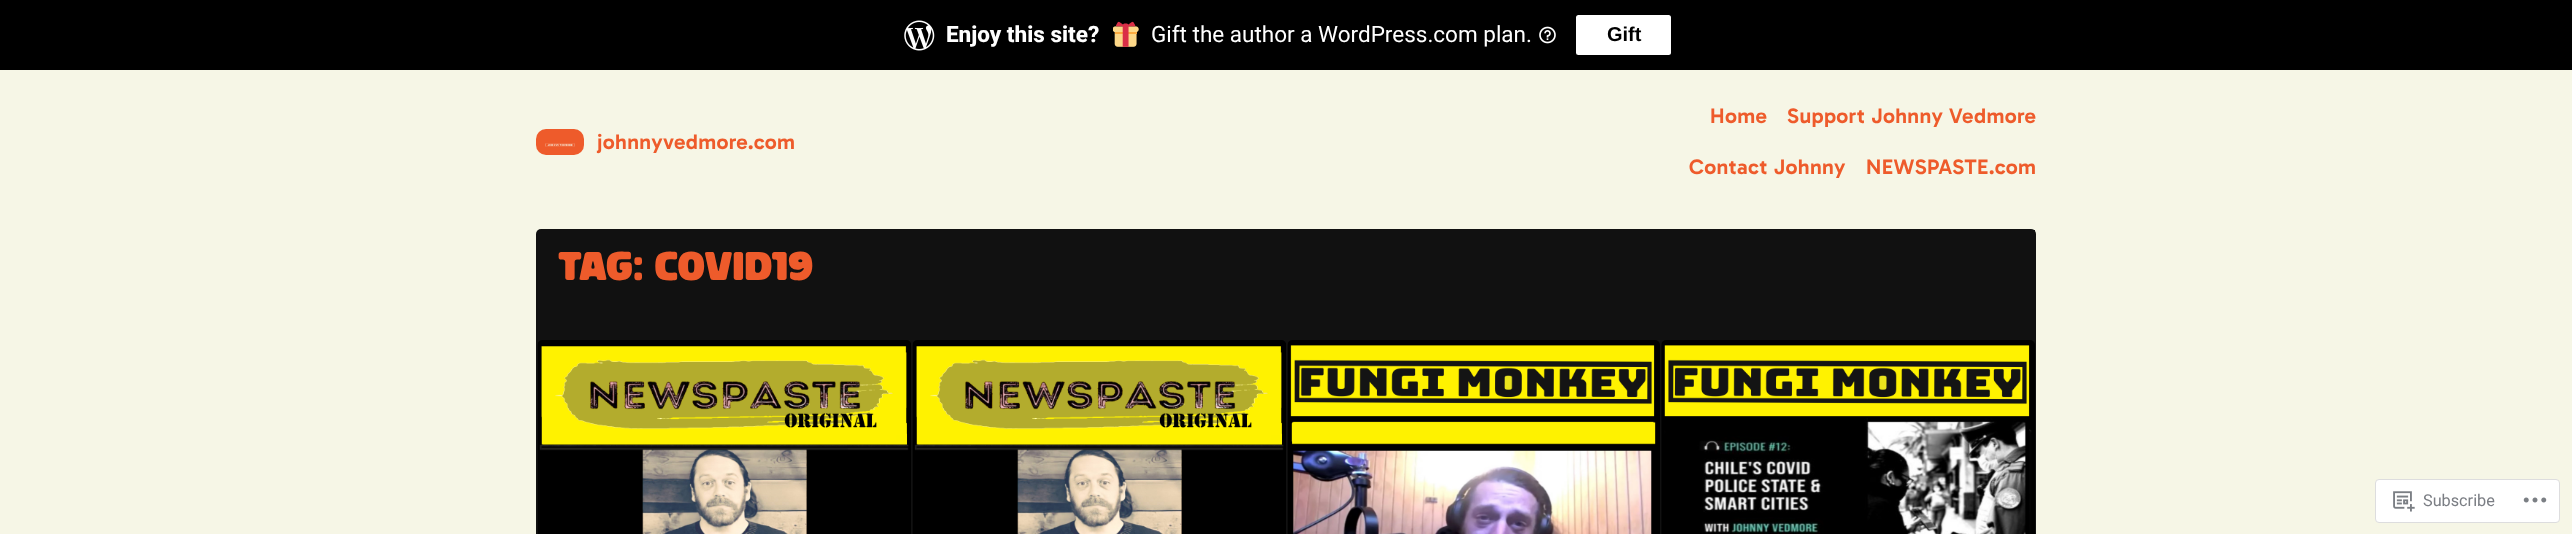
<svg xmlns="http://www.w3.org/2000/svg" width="2572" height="534">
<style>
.a{font:800 22.5px Roboto;fill:#fff}
.b{font:22.5px Roboto;fill:#fff}
.c{font:bold 20px Liberation Sans;fill:#000}
.d{font:600 21.25px Gabarito;letter-spacing:0.4px;fill:#ee5b2b}
.e{font:bold 40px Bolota;letter-spacing:0.6px;fill:#ee5b2b}
.f{font:16.25px Roboto;fill:#7b7e84}
</style>
<rect width="100%" height="100%" fill="#f6f6e6"/>
<path fill="#000" d="M0 0h2572v70H0z"/>
<image href="1.png" x="904" y="20" width="31" height="31"/>
<image href="2.png" x="1113" y="21" width="26" height="26"/>
<image href="3.png" x="1539" y="26" width="17" height="18"/>
<rect fill="#fff" x="1576" y="15" width="95" height="40" rx="2.5"/>
<rect fill="#ee5b2b" x="536" y="129" width="48" height="26" rx="10"/>
<image href="4.png" x="545" y="143" width="30" height="4"/>
<rect fill="#111" x="536" y="229" width="1500" height="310" rx="5"/>
<path fill="#111" d="M538 230h1497v77.5c0 1.5-1 2.5-2.5 2.5h-1492c-1.5 0-2.5-1-2.5-2.5z"/>
<image href="5.png" x="537" y="340" width="374" height="194"/>
<image href="5.png" x="912" y="340" width="374" height="194"/>
<image href="6.png" x="1287" y="340" width="373" height="194"/>
<image href="7.png" x="1661" y="340" width="374" height="194"/>
<rect fill="#fff" stroke="#ddddde" x="2375.5" y="479.5" width="184" height="43" rx="3.5"/>
<image href="8.png" x="2393" y="491" width="22" height="21"/>
<image href="9.png" x="2523" y="497" width="24" height="6"/>
<text class="a" x="946" y="42">Enjoy this site?</text>
<text class="b" x="1151" y="42">Gift the author a WordPress.com plan.</text>
<text class="c" x="1607" y="41">Gift</text>
<text class="d" x="597" y="149">johnnyvedmore.com</text>
<text class="d" x="1710" y="123">Home</text>
<text class="d" x="1787" y="123">Support Johnny Vedmore</text>
<text class="d" x="1689" y="174">Contact Johnny</text>
<text class="d" x="1866" y="174">NEWSPASTE.com</text>
<text class="e" x="558" y="280">Tag: Covid19</text>
<text class="f" x="2423" y="506">Subscribe</text>
</svg>
